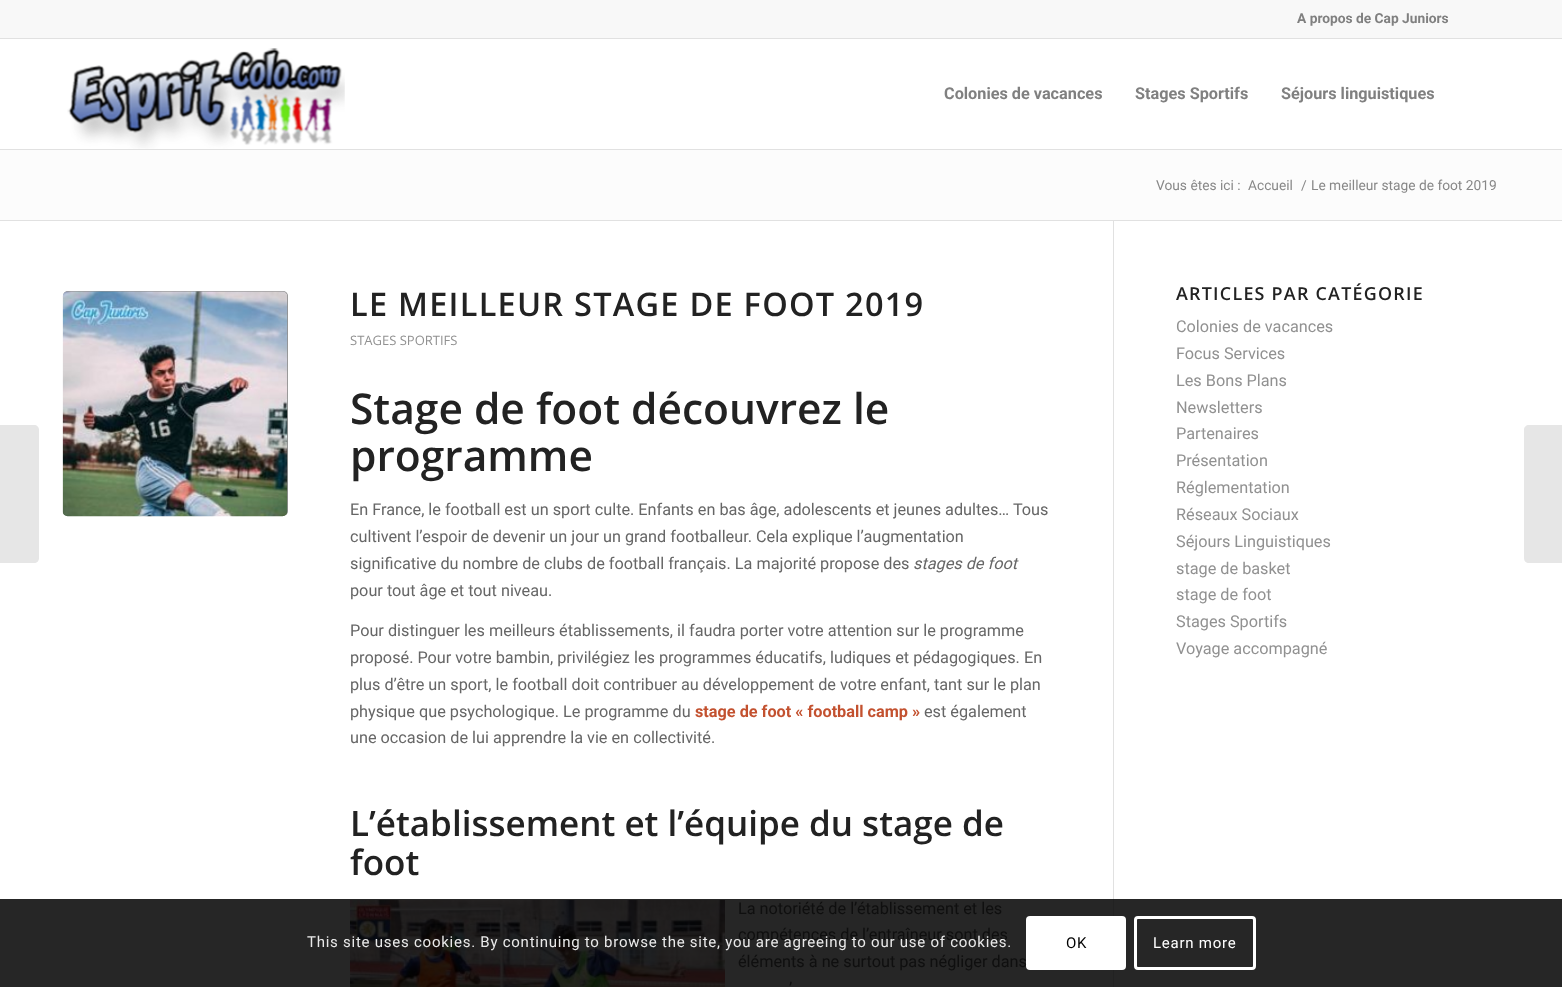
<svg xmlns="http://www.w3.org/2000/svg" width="1562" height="987">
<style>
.a{font:bold 13.75px Roboto;fill:#808080}
.b{font:bold 16.25px Roboto;fill:#808080}
.c{font:13.75px Roboto;fill:#888}
.d{font:600 32.5px Open Sans;letter-spacing:1.25px;fill:#222}
.e{font:13px Open Sans;fill:#919191}
.f{font:600 42.5px Open Sans;fill:#222}
.g{font:16.25px Roboto;fill:#666}
.h{font:italic 16.25px Roboto;fill:#666}
.i{font:bold 16.25px Roboto;fill:#c3512f}
.j{font:600 35px Open Sans;fill:#222}
.k{font:16.25px Roboto;fill:#0f0f0f}
.l{font:600 17.9px Open Sans;letter-spacing:1.25px;fill:#222}
.m{font:16.25px Roboto;fill:#919191}
.n{font:15px Roboto;letter-spacing:0.75px;fill:#e9e9e9}
.o{font:15px Roboto;letter-spacing:0.75px;fill:#000}
.p{font:15px Roboto;letter-spacing:0.75px;fill:#fff}
</style>
<rect width="100%" height="100%" fill="#fff"/>
<path fill="#f8f8f8" d="M0 0h1562v38H0z"/>
<path fill="#e1e1e1" d="M0 38h1562v1H0z"/>
<path fill="#e1e1e1" d="M0 149h1562v1H0z"/>
<image href="1.png" x="67" y="48" width="278" height="101"/>
<path fill="#e6e6e6" d="M0 425h34c3 0 5 2 5 5v128c0 3-2 5-5 5h-34z"/>
<path fill="#262626" d="M0 899h1562v88H0z"/>
<path fill="#fcfcfc" d="M0 150h1562v70H0z"/>
<path fill="#e1e1e1" d="M0 220h1562v1H0z"/>
<path fill="#e1e1e1" d="M1113 221h1v678H1113z"/>
<path fill="#222" d="M1113 899h1v88H1113z"/>
<rect fill="#919191" x="63" y="291" width="225" height="225" rx="5"/>
<image href="2.png" x="62" y="291" width="226" height="226"/>
<image href="3.png" x="350" y="900" width="375" height="87"/>
<path fill="#e6e6e6" d="M1529 425h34v138h-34c-3 0-5-2-5-5v-128c0-3 2-5 5-5z"/>
<rect fill="#fff" x="1026" y="916" width="100" height="54" rx="4"/>
<rect fill="none" stroke="#fff" stroke-width="3" x="1135.5" y="917.5" width="119" height="51" rx="2.5"/>
<text class="a" x="1297" y="23">A propos de Cap Juniors</text>
<text class="b" x="944" y="99">Colonies de vacances</text>
<text class="b" x="1135" y="99">Stages Sportifs</text>
<text class="b" x="1281" y="99">Séjours linguistiques</text>
<text class="c" x="1156" y="190">Vous êtes ici :</text>
<text class="c" x="1248" y="190">Accueil</text>
<text class="c" x="1301" y="190">/</text>
<text class="c" x="1311" y="190">Le meilleur stage de foot 2019</text>
<text class="d" x="350" y="316">LE MEILLEUR STAGE DE FOOT 2019</text>
<text class="e" x="350" y="345">STAGES SPORTIFS</text>
<text class="f" x="350" y="424">Stage de foot découvrez le</text>
<text class="f" x="350" y="471">programme</text>
<text class="g" x="350" y="515">En France, le football est un sport culte. Enfants en bas âge, adolescents et jeunes adultes… Tous</text>
<text class="g" x="350" y="542">cultivent l’espoir de devenir un jour un grand footballeur. Cela explique l’augmentation</text>
<text class="g" x="350" y="569">significative du nombre de clubs de football français. La majorité propose des</text>
<text class="h" x="913" y="569">stages de foot</text>
<text class="g" x="350" y="596">pour tout âge et tout niveau.</text>
<text class="g" x="350" y="636">Pour distinguer les meilleurs établissements, il faudra porter votre attention sur le programme</text>
<text class="g" x="350" y="663">proposé. Pour votre bambin, privilégiez les programmes éducatifs, ludiques et pédagogiques. En</text>
<text class="g" x="350" y="690">plus d’être un sport, le football doit contribuer au développement de votre enfant, tant sur le plan</text>
<text class="g" x="350" y="717">physique que psychologique. Le programme du</text>
<text class="i" x="695" y="717">stage de foot « football camp »</text>
<text class="g" x="924" y="717">est également</text>
<text class="g" x="350" y="743">une occasion de lui apprendre la vie en collectivité.</text>
<text class="j" x="350" y="836">L’établissement et l’équipe du stage de</text>
<text class="j" x="350" y="875">foot</text>
<text class="k" x="738" y="914">La notoriété de l’établissement et les</text>
<text class="k" x="738" y="940">compétences de l’entraîneur sont des</text>
<text class="k" x="738" y="967">éléments à ne surtout pas négliger dans</text>
<text class="k" x="789" y="994">’</text>
<text class="l" x="1176" y="300">ARTICLES PAR CATÉGORIE</text>
<text class="m" x="1176" y="332">Colonies de vacances</text>
<text class="m" x="1176" y="359">Focus Services</text>
<text class="m" x="1176" y="386">Les Bons Plans</text>
<text class="m" x="1176" y="413">Newsletters</text>
<text class="m" x="1176" y="439">Partenaires</text>
<text class="m" x="1176" y="466">Présentation</text>
<text class="m" x="1176" y="493">Réglementation</text>
<text class="m" x="1176" y="520">Réseaux Sociaux</text>
<text class="m" x="1176" y="547">Séjours Linguistiques</text>
<text class="m" x="1176" y="574">stage de basket</text>
<text class="m" x="1176" y="600">stage de foot</text>
<text class="m" x="1176" y="627">Stages Sportifs</text>
<text class="m" x="1176" y="654">Voyage accompagné</text>
<text class="n" x="307" y="947">This site uses cookies. By continuing to browse the site, you are agreeing to our use of cookies.</text>
<text class="o" x="1066" y="948">OK</text>
<text class="p" x="1153" y="948">Learn more</text>
</svg>
